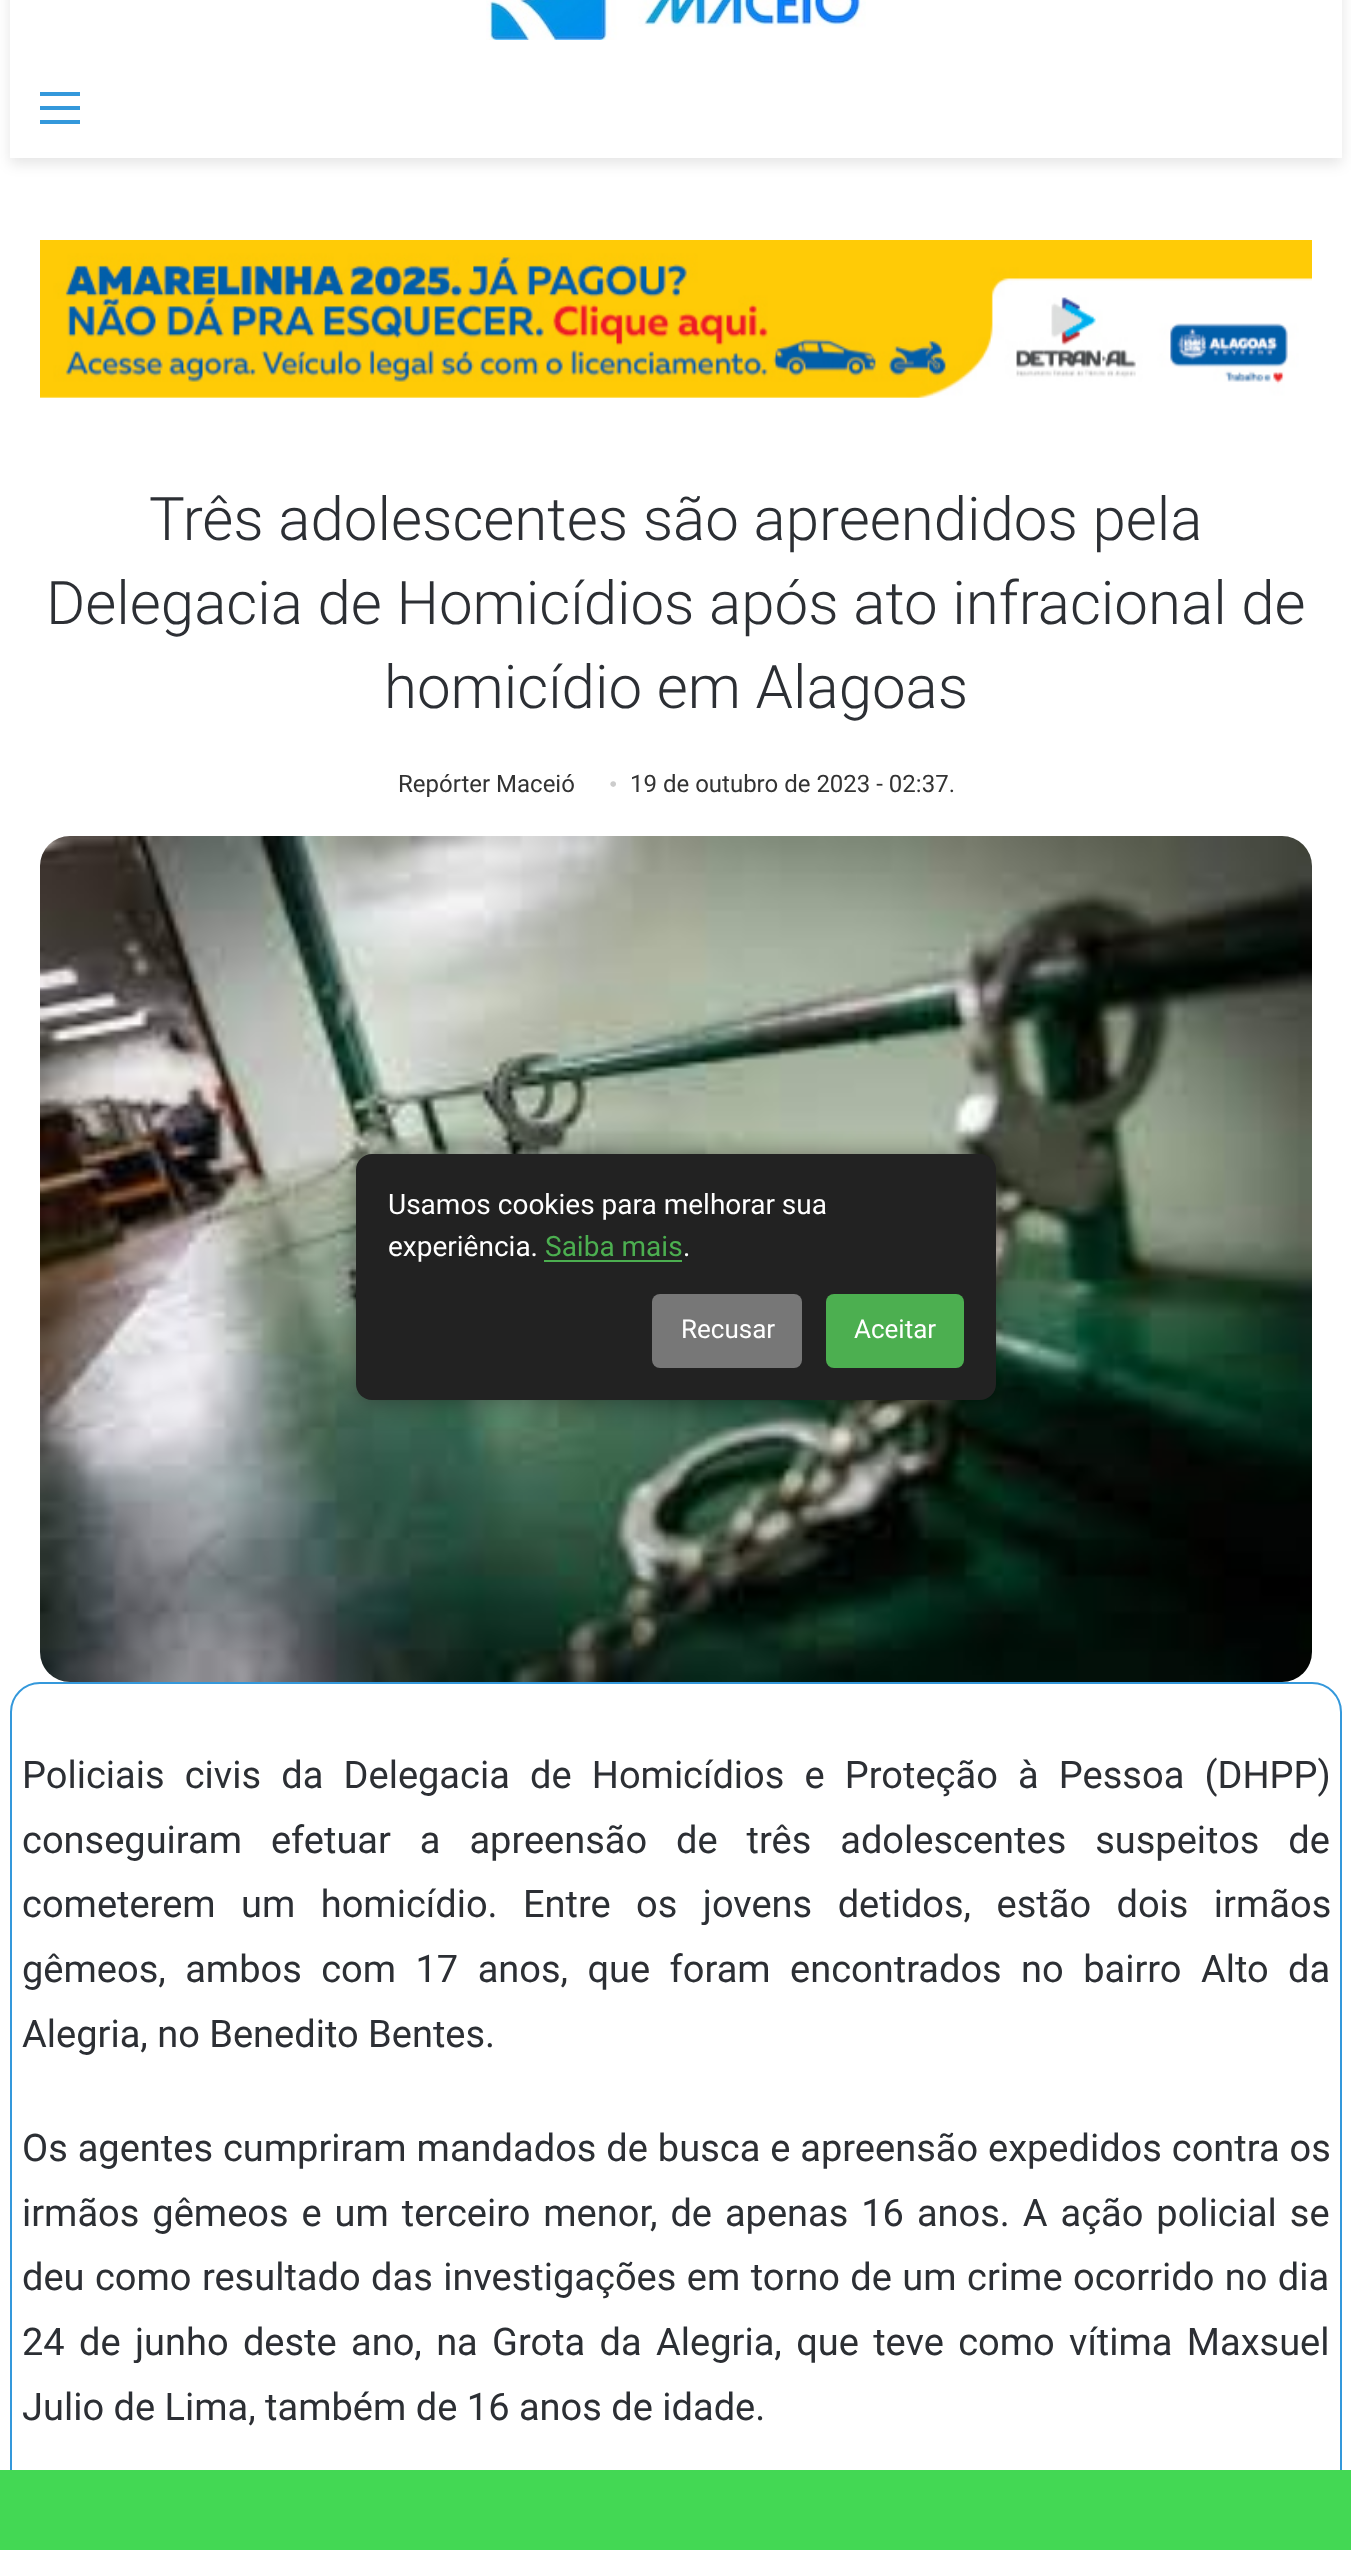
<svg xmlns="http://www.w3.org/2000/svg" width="1351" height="2550">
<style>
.a{font:300 60px Roboto;fill:#2c2f34}
.b{font:24px Roboto;fill:#333}
.c{font:24px Liberation Serif;fill:#ccc}
.d{font:38px Roboto;fill:#2c2f34}
.e{font:28px Roboto;fill:#fff}
.f{font:28px Roboto;fill:#4caf50}
.g{font:26px Roboto;fill:#fff}
</style>
<defs>
<clipPath id="clip1"><path d="M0 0h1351v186h-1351zm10-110h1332v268h-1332z" clip-rule="evenodd"/></clipPath>
</defs>
<rect width="100%" height="100%" fill="#fff"/>
<g clip-path="url(#clip1)">
<path fill="#0000001a" filter="blur(7px)" d="M10 -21h1332v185H10z"/>
</g>
<image href="1.png" x="486" y="0" width="380" height="40"/>
<path fill="#3498db" d="M40 106h40v4H40z"/>
<path fill="#3498db" d="M40 92h40v4H40z"/>
<path fill="#3498db" d="M40 120h40v4H40z"/>
<image href="2.png" x="40" y="240" width="1272" height="158"/>
<image href="3.png" x="40" y="836" width="1272" height="846"/>
<rect fill="none" stroke="#3498db" stroke-width="2" x="11" y="1683" width="1330" height="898" rx="29"/>
<path fill="#43d854" d="M0 2470h1351v80H0z"/>
<rect fill="#00000066" filter="blur(12px)" x="356" y="1158" width="640" height="246" rx="16"/>
<rect fill="#222" x="356" y="1154" width="640" height="246" rx="16"/>
<path fill="#4caf50" d="M544 1260h138v2H544z"/>
<rect fill="#777" x="652" y="1294" width="150" height="74" rx="8"/>
<rect fill="#4caf50" x="826" y="1294" width="138" height="74" rx="8"/>
<text class="a" x="149" y="540">Três adolescentes são apreendidos pela</text>
<text class="a" x="46" y="624">Delegacia de Homicídios após ato infracional de</text>
<text class="a" x="384" y="708">homicídio em Alagoas</text>
<text class="b" x="398" y="792">Repórter Maceió</text>
<text class="c" x="609" y="792">•</text>
<text class="b" x="630" y="792">19 de outubro de 2023 - 02:37.</text>
<text class="d" x="22" y="1788" word-spacing="10.75">Policiais civis da Delegacia de Homicídios e Proteção à Pessoa (DHPP)</text>
<text class="d" x="22" y="1853" word-spacing="19.5">conseguiram efetuar a apreensão de três adolescentes suspeitos de</text>
<text class="d" x="22" y="1917" word-spacing="16">cometerem um homicídio. Entre os jovens detidos, estão dois irmãos</text>
<text class="d" x="22" y="1982" word-spacing="10">gêmeos, ambos com 17 anos, que foram encontrados no bairro Alto da</text>
<text class="d" x="22" y="2047">Alegria, no Benedito Bentes.</text>
<text class="d" x="22" y="2161" word-spacing="0.5">Os agentes cumpriram mandados de busca e apreensão expedidos contra os</text>
<text class="d" x="22" y="2226" word-spacing="3.5">irmãos gêmeos e um terceiro menor, de apenas 16 anos. A ação policial se</text>
<text class="d" x="22" y="2290" word-spacing="1">deu como resultado das investigações em torno de um crime ocorrido no dia</text>
<text class="d" x="22" y="2355" word-spacing="4.9">24 de junho deste ano, na Grota da Alegria, que teve como vítima Maxsuel</text>
<text class="d" x="22" y="2420">Julio de Lima, também de 16 anos de idade.</text>
<text class="e" x="388" y="1214">Usamos cookies para melhorar sua</text>
<text class="e" x="388" y="1256">experiência.</text>
<text class="f" x="545" y="1256">Saiba mais</text>
<text class="e" x="683" y="1256">.</text>
<text class="g" x="681" y="1338">Recusar</text>
<text class="g" x="854" y="1338">Aceitar</text>
</svg>
